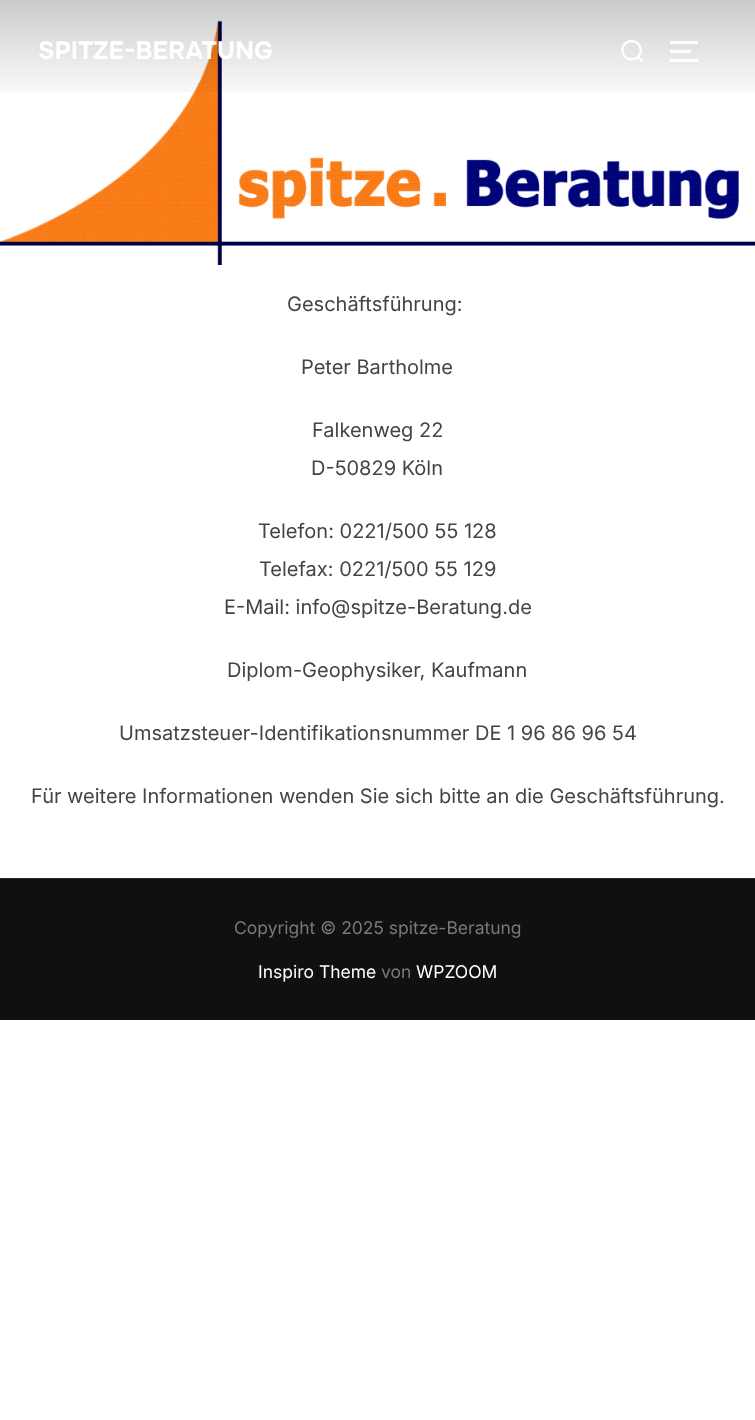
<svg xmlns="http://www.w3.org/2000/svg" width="755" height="1420">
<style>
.a{font:bold 25px Onest;fill:#fff}
.b{font:20px Inter;fill:#444}
.c{font:17.5px Inter;fill:#78787f}
.d{font:17.5px Inter;fill:#fff}
</style>
<defs>
<linearGradient id="g1" gradientUnits="userSpaceOnUse" x1="378" y1="0" x2="378" y2="103"><stop offset="0.01" stop-color="#000" stop-opacity="0.2"/><stop offset="1" stop-color="#000" stop-opacity="0"/></linearGradient>
</defs>
<rect width="100%" height="100%" fill="#fff"/>
<image href="2.png" x="0" y="20" width="755" height="245"/>
<path fill="url(#g1)" d="M0 0h755v92H0z"/>
<image href="1.png" x="621" y="40" width="23" height="22"/>
<path fill="#fff" d="M670 41h28v3H670z"/>
<path fill="#fff" d="M670 50h21v3H670z"/>
<path fill="#fff" d="M670 59h28v3H670z"/>
<path fill="#101010" d="M0 879h755v141H0z"/>
<path fill="#282828" d="M0 878h755v1H0z"/>
<text class="a" x="38" y="59">SPITZE-BERATUNG</text>
<text class="b" x="287" y="311">Geschäftsführung:</text>
<text class="b" x="301" y="374">Peter Bartholme</text>
<text class="b" x="312" y="437">Falkenweg 22</text>
<text class="b" x="311" y="475">D-50829 Köln</text>
<text class="b" x="258" y="538">Telefon: 0221/500 55 128</text>
<text class="b" x="259" y="576">Telefax: 0221/500 55 129</text>
<text class="b" x="224" y="614">E-Mail: info@spitze-Beratung.de</text>
<text class="b" x="227" y="677">Diplom-Geophysiker, Kaufmann</text>
<text class="b" x="119" y="740">Umsatzsteuer-Identifikationsnummer DE 1 96 86 96 54</text>
<text class="b" x="31" y="803">Für weitere Informationen wenden Sie sich bitte an die Geschäftsführung.</text>
<text class="c" x="234" y="934">Copyright © 2025 spitze-Beratung</text>
<text class="d" x="258" y="978">Inspiro Theme</text>
<text class="c" x="381" y="978">von</text>
<text class="d" x="416" y="978">WPZOOM</text>
</svg>
